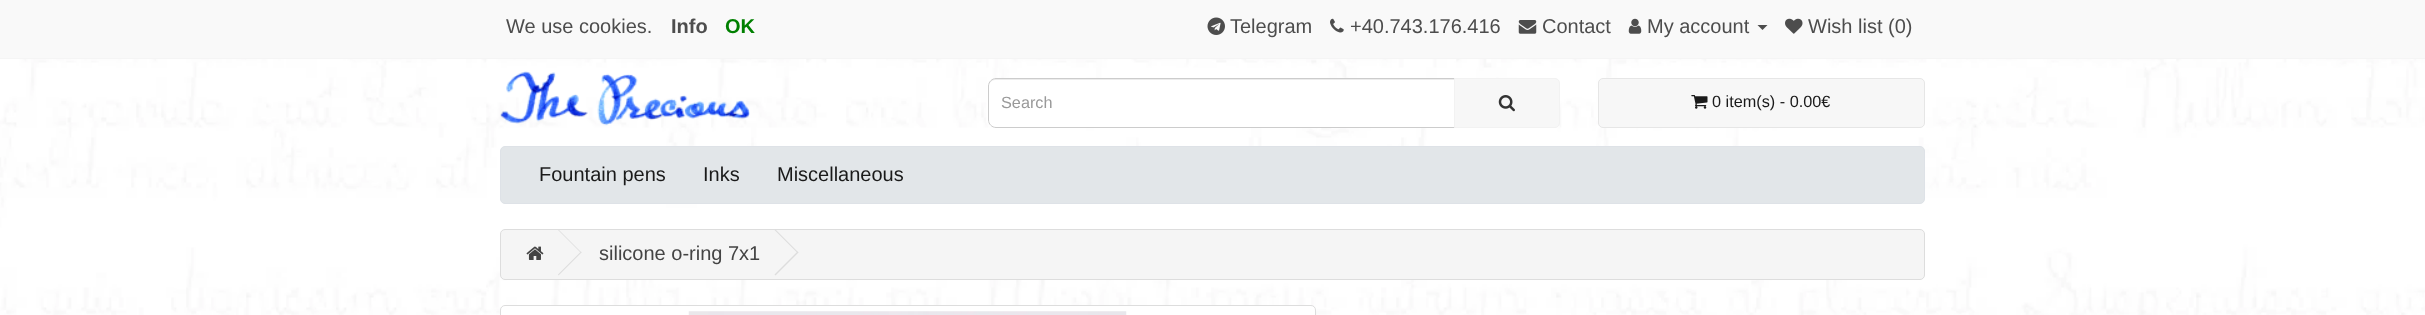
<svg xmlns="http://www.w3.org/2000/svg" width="2425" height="315">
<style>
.a{font:20px Liberation Sans;fill:#4d4d4d}
.b{font:bold 20px Liberation Sans;fill:#4d4d4d}
.c{font:bold 20px Liberation Sans;fill:#008000}
.d{font:16.25px Liberation Sans;fill:#999}
.e{font:16.25px Liberation Sans;fill:#1a1a1a}
.f{font:20px Liberation Sans;fill:#1a1a1a}
.g{font:20px Liberation Sans;fill:#444}
</style>
<rect width="100%" height="100%" fill="#fff"/>
<image href="1.png" x="0" y="59" width="2425" height="256"/>
<path fill="#f9f9f9" d="M0 0h2425v58H0z"/>
<path fill="#f5f5f5" d="M0 58h2425v1H0z"/>
<image href="2.png" x="1207" y="17" width="18" height="18"/>
<image href="3.png" x="1330" y="18" width="14" height="15"/>
<image href="4.png" x="1518" y="20" width="19" height="14"/>
<image href="5.png" x="1628" y="18" width="14" height="16"/>
<path fill="#4d4d4d" d="M1757.5 25h10l-5 5z"/>
<image href="6.png" x="1785" y="18" width="18" height="16"/>
<image href="7.png" x="500" y="71" width="250" height="55"/>
<path fill="#fff" d="M996 78h459v50h-459c-4.5 0-8-3.5-8-8v-34c0-4.5 3.5-8 8-8z"/>
<path fill="#ececec" d="M995 80h459v-1h-459c-4 0-6 3-6 7c0-3 3-6 6-6z"/>
<path fill="none" stroke="#ccc" d="M996 78.5h458.5v49h-458.5c-4 0-7.5-3.5-7.5-7.5v-34c0-4 3.5-7.5 7.5-7.5z"/>
<path fill="#f7f7f7" stroke="#f2f2f2" d="M1454.5 78.5h100.5c2.5 0 4.5 2 4.5 4.5v40c0 2.5-2 4.5-4.5 4.5h-100.5z"/>
<image href="8.png" x="1498" y="95" width="17" height="17"/>
<rect fill="#f7f7f7" stroke="#e6e6e6" x="1598.5" y="78.5" width="326" height="49" rx="4.5"/>
<image href="9.png" x="1691" y="95" width="17" height="14"/>
<rect fill="#e2e6e9" stroke="#dee2e7" x="500.5" y="146.5" width="1424" height="57" rx="4.5"/>
<rect fill="#f5f5f5" stroke="#ddd" x="500.5" y="229.5" width="1424" height="50" rx="4.5"/>
<image href="10.png" x="526" y="246" width="18" height="14"/>
<path fill="#ddd" d="M558 230l.5-.5l23 23l-.5 .5z"/>
<path fill="#ddd" d="M558 274.5l23-23l.5 1l-23 23z"/>
<path fill="#ddd" d="M774.5 230l1-.5l23 23l-1 .5z"/>
<path fill="#ddd" d="M774.5 274.5l23-23l1 1l-23 23z"/>
<rect fill="#fff" stroke="#ddd" x="500.5" y="305.5" width="815" height="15" rx="4.5"/>
<image href="11.png" x="688" y="311" width="439" height="4"/>
<text class="a" x="506" y="33">We use cookies.</text>
<text class="b" x="671" y="33">Info</text>
<text class="c" x="725" y="33">OK</text>
<text class="a" x="1230" y="33">Telegram</text>
<text class="a" x="1350" y="33">+40.743.176.416</text>
<text class="a" x="1542" y="33">Contact</text>
<text class="a" x="1647" y="33">My account</text>
<text class="a" x="1808" y="33">Wish list (0)</text>
<text class="d" x="1001" y="108">Search</text>
<text class="e" x="1712" y="107">0 item(s) - 0.00€</text>
<text class="f" x="539" y="181">Fountain pens</text>
<text class="f" x="703" y="181">Inks</text>
<text class="f" x="777" y="181">Miscellaneous</text>
<text class="g" x="599" y="260">silicone o-ring 7x1</text>
</svg>
